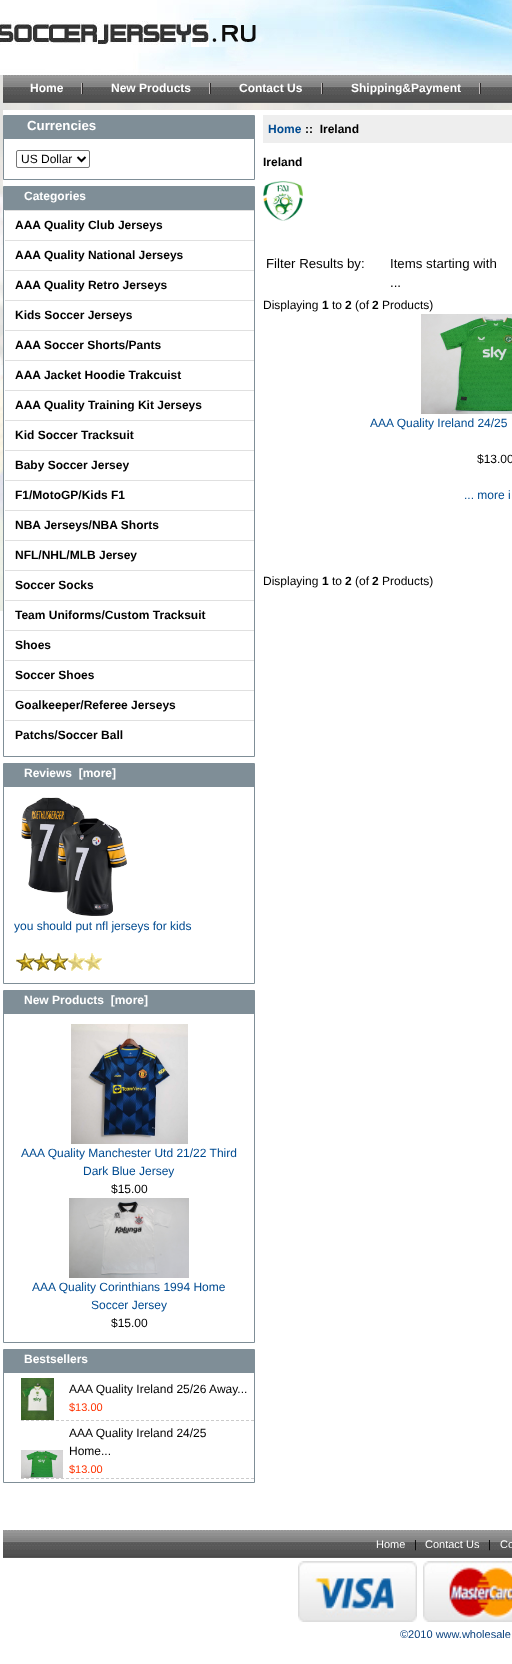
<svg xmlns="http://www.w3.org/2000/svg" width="512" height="1664">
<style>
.a{font:bold 12px Liberation Sans;fill:#fff}
.b{font:bold 13.25px Liberation Sans;fill:#fff}
.c{font:12px Liberation Sans;fill:#000}
.d{font:bold 12px Liberation Sans;fill:#000}
.e{font:12px Liberation Sans;fill:#004b91}
.f{font:11px Liberation Sans;fill:#f30}
.g{font:bold 12px Liberation Sans;fill:#004b91}
.h{font:13.25px Liberation Sans;fill:#000}
.i{font:11px Liberation Sans;fill:#fff}
.j{font:11px Liberation Sans;fill:#000}
.k{font:11px Liberation Sans;fill:#09417e}
</style>
<rect width="100%" height="100%" fill="#fff"/>
<image href="1.png" x="0" y="0" width="512" height="611"/>
<image href="2.png" x="3" y="75" width="509" height="28"/>
<image href="3.png" x="81" y="83" width="2" height="11"/>
<image href="3.png" x="209" y="83" width="2" height="11"/>
<image href="3.png" x="321" y="83" width="2" height="11"/>
<image href="3.png" x="479" y="83" width="2" height="11"/>
<path fill="#fff" d="M3 110h509v501H3z"/>
<path fill="none" stroke="#7f8e97" d="M3.5 115.5h251v64H3.5z"/>
<path fill="#7f8e97" d="M4 116h250v23H4z"/>
<rect fill="none" stroke="#767676" x="16.5" y="150.5" width="73" height="17" rx="1.5"/>
<path fill="none" stroke="#000" stroke-width="2" d="M77.5 157l4 4l4-4"/>
<path fill="none" stroke="#7f8e97" d="M3.5 186.5h251v570H3.5z"/>
<path fill="#7f8e97" d="M4 187h250v23H4z"/>
<path fill="#e0e0e0" d="M4 210h250v1H4z"/>
<path fill="#fff" d="M4 210h1v1H4z"/>
<path fill="#e0e0e0" d="M4 240h250v1H4z"/>
<path fill="#fff" d="M4 240h1v1H4z"/>
<path fill="#e0e0e0" d="M4 270h250v1H4z"/>
<path fill="#fff" d="M4 270h1v1H4z"/>
<path fill="#e0e0e0" d="M4 300h250v1H4z"/>
<path fill="#fff" d="M4 300h1v1H4z"/>
<path fill="#e0e0e0" d="M4 330h250v1H4z"/>
<path fill="#fff" d="M4 330h1v1H4z"/>
<path fill="#e0e0e0" d="M4 360h250v1H4z"/>
<path fill="#fff" d="M4 360h1v1H4z"/>
<path fill="#e0e0e0" d="M4 390h250v1H4z"/>
<path fill="#fff" d="M4 390h1v1H4z"/>
<path fill="#e0e0e0" d="M4 420h250v1H4z"/>
<path fill="#fff" d="M4 420h1v1H4z"/>
<path fill="#e0e0e0" d="M4 450h250v1H4z"/>
<path fill="#fff" d="M4 450h1v1H4z"/>
<path fill="#e0e0e0" d="M4 480h250v1H4z"/>
<path fill="#fff" d="M4 480h1v1H4z"/>
<path fill="#e0e0e0" d="M4 510h250v1H4z"/>
<path fill="#fff" d="M4 510h1v1H4z"/>
<path fill="#e0e0e0" d="M4 540h250v1H4z"/>
<path fill="#fff" d="M4 540h1v1H4z"/>
<path fill="#e0e0e0" d="M4 570h250v1H4z"/>
<path fill="#fff" d="M4 570h1v1H4z"/>
<path fill="#e0e0e0" d="M4 600h250v1H4z"/>
<path fill="#fff" d="M4 600h1v1H4z"/>
<path fill="#e0e0e0" d="M4 630h250v1H4z"/>
<path fill="#fff" d="M4 630h1v1H4z"/>
<path fill="#e0e0e0" d="M4 660h250v1H4z"/>
<path fill="#fff" d="M4 660h1v1H4z"/>
<path fill="#e0e0e0" d="M4 690h250v1H4z"/>
<path fill="#fff" d="M4 690h1v1H4z"/>
<path fill="#e0e0e0" d="M4 720h250v1H4z"/>
<path fill="#fff" d="M4 720h1v1H4z"/>
<path fill="none" stroke="#7f8e97" d="M3.5 763.5h251v220H3.5z"/>
<path fill="#7f8e97" d="M4 764h250v23H4z"/>
<image href="4.png" x="21" y="797" width="106" height="119"/>
<image href="5.png" x="16" y="953" width="86" height="18"/>
<path fill="none" stroke="#7f8e97" d="M3.5 990.5h251v352H3.5z"/>
<path fill="#7f8e97" d="M4 991h250v23H4z"/>
<image href="6.png" x="71" y="1024" width="117" height="120"/>
<image href="7.png" x="69" y="1198" width="120" height="80"/>
<path fill="none" stroke="#7f8e97" d="M3.5 1349.5h251v133H3.5z"/>
<path fill="#7f8e97" d="M4 1350h250v23H4z"/>
<path fill="none" stroke="#ccc" stroke-dasharray="3 2" d="M21 1420.5h233"/>
<image href="8.png" x="21" y="1378" width="33" height="42"/>
<path fill="none" stroke="#ccc" stroke-dasharray="3 2" d="M21 1478.5h233"/>
<image href="9.png" x="21" y="1450" width="42" height="28"/>
<path fill="#eee" d="M263 115h249v28H263z"/>
<image href="10.png" x="263" y="181" width="40" height="40"/>
<image href="11.png" x="421" y="314" width="91" height="100"/>
<image href="2.png" x="3" y="1530" width="509" height="28"/>
<image href="12.png" x="298" y="1561" width="119" height="61"/>
<image href="13.png" x="423" y="1561" width="89" height="61"/>
<text class="a" x="30" y="92">Home</text>
<text class="a" x="111" y="92">New Products</text>
<text class="a" x="239" y="92">Contact Us</text>
<text class="a" x="351" y="92">Shipping&amp;Payment</text>
<text class="b" x="27" y="130">Currencies</text>
<text class="c" x="21" y="163">US Dollar</text>
<text class="a" x="24" y="200">Categories</text>
<text class="d" x="15" y="229">AAA Quality Club Jerseys</text>
<text class="d" x="15" y="259">AAA Quality National Jerseys</text>
<text class="d" x="15" y="289">AAA Quality Retro Jerseys</text>
<text class="d" x="15" y="319">Kids Soccer Jerseys</text>
<text class="d" x="15" y="349">AAA Soccer Shorts/Pants</text>
<text class="d" x="15" y="379">AAA Jacket Hoodie Trakcuist</text>
<text class="d" x="15" y="409">AAA Quality Training Kit Jerseys</text>
<text class="d" x="15" y="439">Kid Soccer Tracksuit</text>
<text class="d" x="15" y="469">Baby Soccer Jersey</text>
<text class="d" x="15" y="499">F1/MotoGP/Kids F1</text>
<text class="d" x="15" y="529">NBA Jerseys/NBA Shorts</text>
<text class="d" x="15" y="559">NFL/NHL/MLB Jersey</text>
<text class="d" x="15" y="589">Soccer Socks</text>
<text class="d" x="15" y="619">Team Uniforms/Custom Tracksuit</text>
<text class="d" x="15" y="649">Shoes</text>
<text class="d" x="15" y="679">Soccer Shoes</text>
<text class="d" x="15" y="709">Goalkeeper/Referee Jerseys</text>
<text class="d" x="15" y="739">Patchs/Soccer Ball</text>
<text class="a" xml:space="preserve" x="24" y="777">Reviews  [more]</text>
<text class="e" x="14" y="930">you should put nfl jerseys for kids</text>
<text class="a" xml:space="preserve" x="24" y="1004">New Products  [more]</text>
<text class="e" x="21" y="1157">AAA Quality Manchester Utd 21/22 Third</text>
<text class="e" x="83" y="1175">Dark Blue Jersey</text>
<text class="c" x="111" y="1193">$15.00</text>
<text class="e" x="32" y="1291">AAA Quality Corinthians 1994 Home</text>
<text class="e" x="91" y="1309">Soccer Jersey</text>
<text class="c" x="111" y="1327">$15.00</text>
<text class="a" x="24" y="1363">Bestsellers</text>
<text class="c" x="69" y="1393">AAA Quality Ireland 25/26 Away...</text>
<text class="f" x="69" y="1411">$13.00</text>
<text class="c" x="69" y="1437">AAA Quality Ireland 24/25</text>
<text class="c" x="69" y="1455">Home...</text>
<text class="f" x="69" y="1473">$13.00</text>
<text class="g" x="268" y="133">Home</text>
<text class="d" xml:space="preserve" x="305" y="133">::  Ireland</text>
<text class="d" x="263" y="166">Ireland</text>
<text class="h" x="266" y="268">Filter Results by:</text>
<text class="h" x="390" y="268">Items starting with</text>
<text class="h" x="390" y="287">...</text>
<text class="c" x="263" y="309">Displaying</text>
<text class="d" x="322" y="309">1</text>
<text class="c" x="332" y="309">to</text>
<text class="d" x="345" y="309">2</text>
<text class="c" x="355" y="309">(of</text>
<text class="d" x="372" y="309">2</text>
<text class="c" x="382" y="309">Products)</text>
<text class="e" x="370" y="427">AAA Quality Ireland 24/25</text>
<text class="c" x="477" y="463">$13.00</text>
<text class="e" x="464" y="499">... more i</text>
<text class="c" x="263" y="585">Displaying</text>
<text class="d" x="322" y="585">1</text>
<text class="c" x="332" y="585">to</text>
<text class="d" x="345" y="585">2</text>
<text class="c" x="355" y="585">(of</text>
<text class="d" x="372" y="585">2</text>
<text class="c" x="382" y="585">Products)</text>
<text class="i" x="376" y="1548">Home</text>
<text class="j" x="414" y="1548">|</text>
<text class="i" x="425" y="1548">Contact Us</text>
<text class="j" x="488" y="1548">|</text>
<text class="i" x="500" y="1548">Co</text>
<text class="k" x="400" y="1638">©2010 www.wholesale</text>
</svg>
